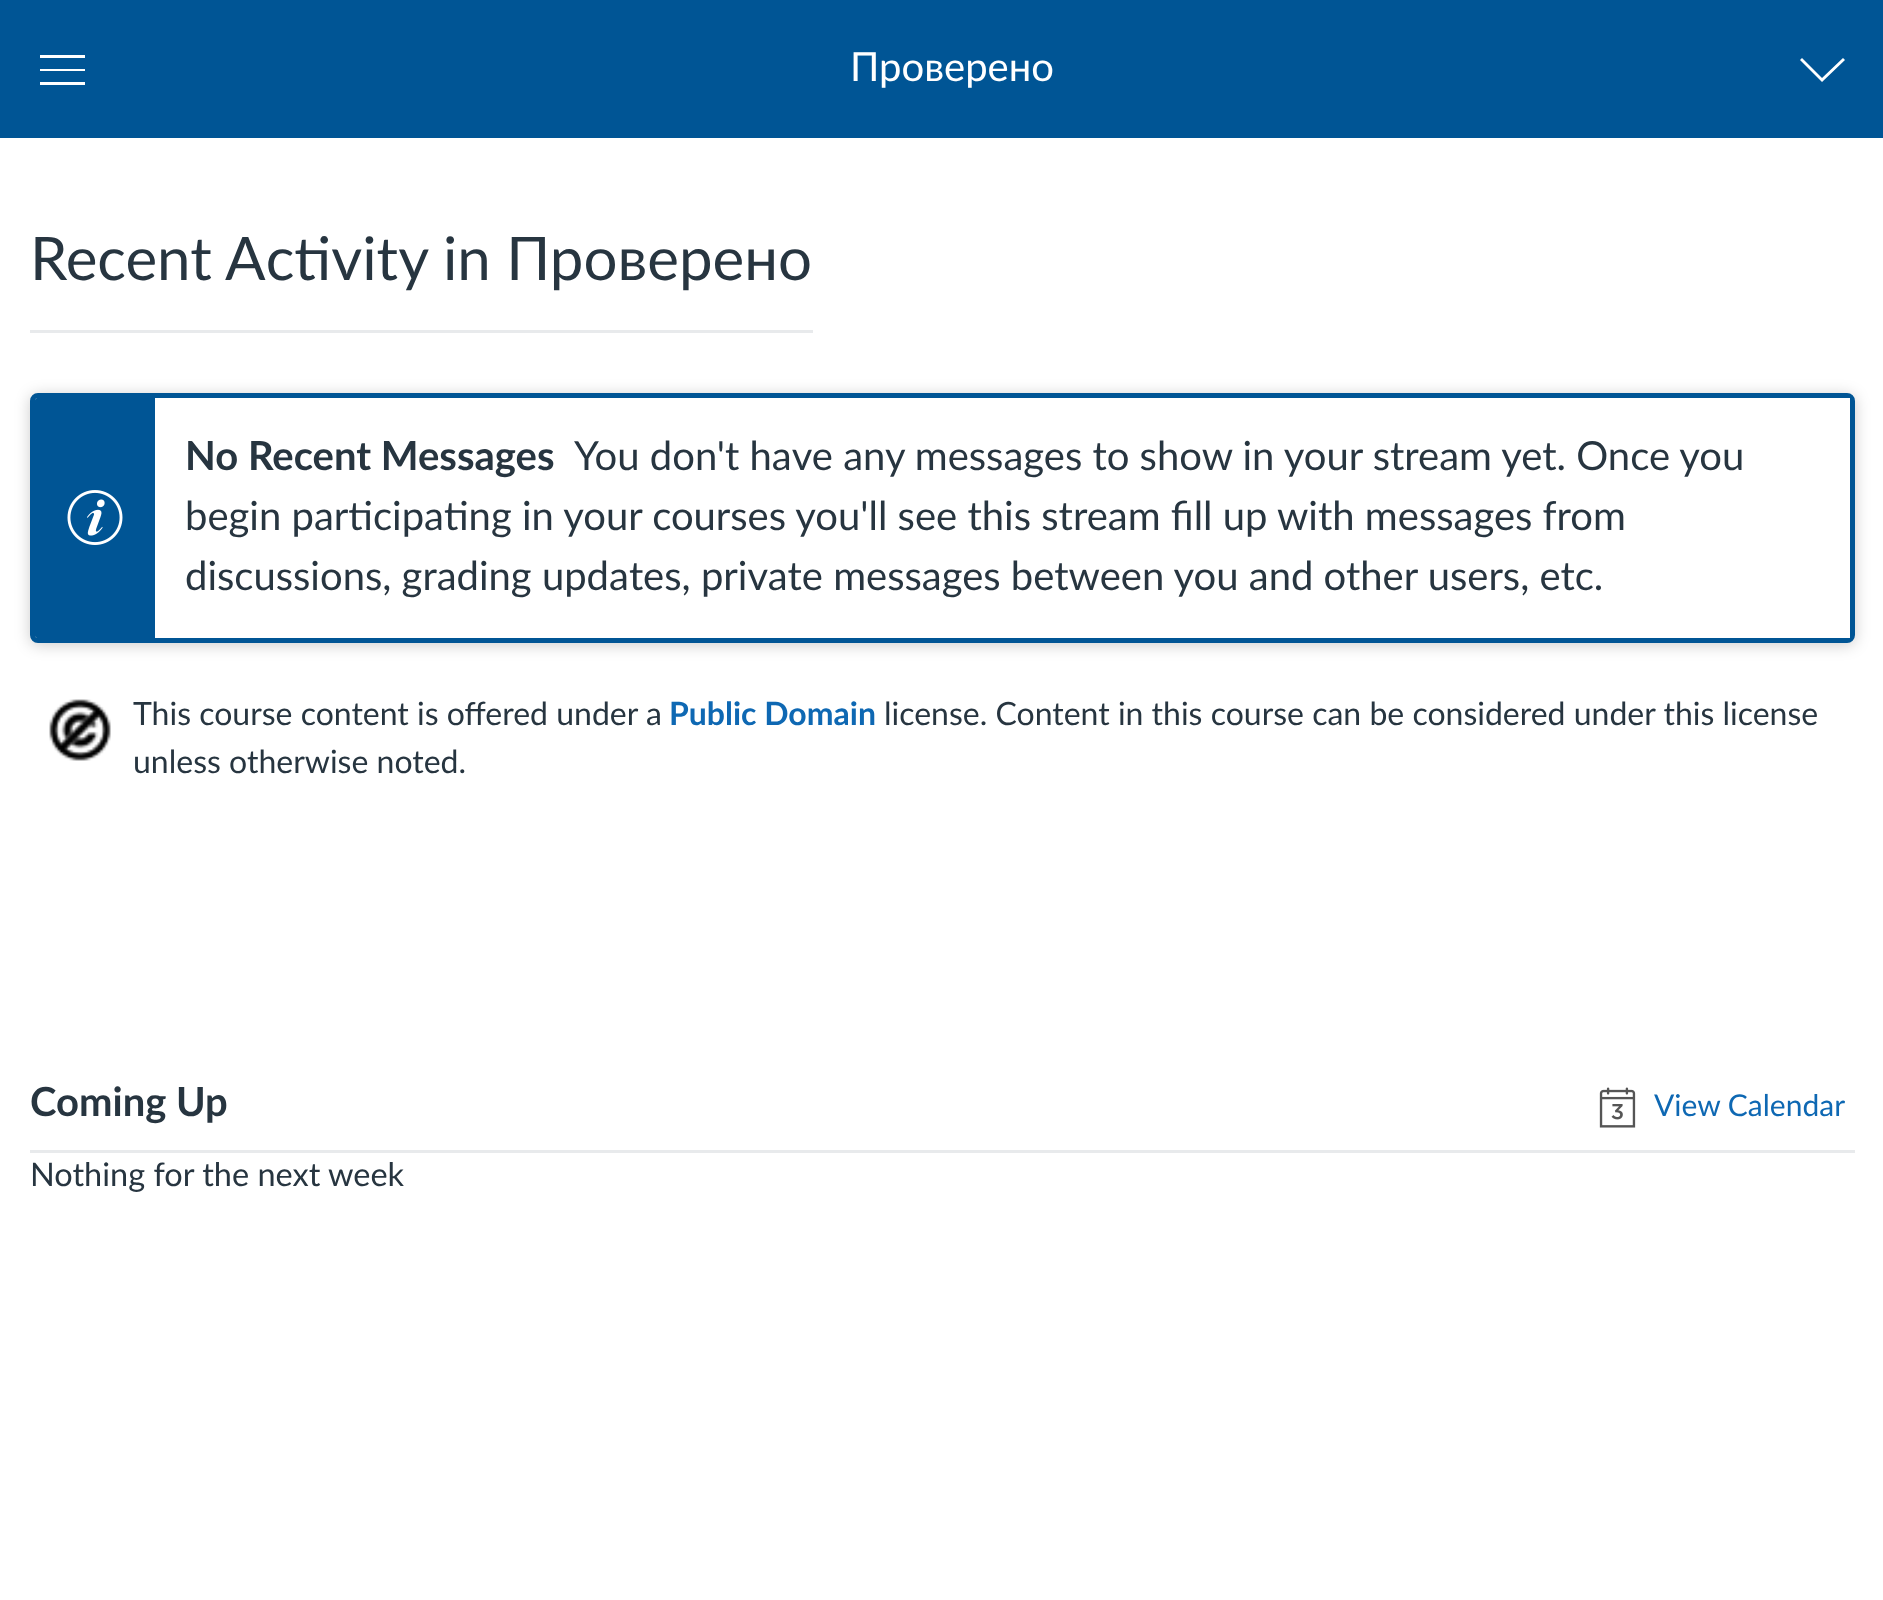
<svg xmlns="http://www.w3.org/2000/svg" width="1883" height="1600">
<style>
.a{font:40px Lato;fill:#fff}
.b{font:60px Lato;fill:#273540}
.c{font:bold 40px Lato;fill:#273540}
.d{font:40px Lato;fill:#273540}
.e{font:32px Lato;fill:#273540}
.f{font:bold 32px Lato;fill:#0e68b3}
.g{font:30px Lato;fill:#0e68b3}
.h{font:32.5px Lato;fill:#273540}
</style>
<rect width="100%" height="100%" fill="#fff"/>
<path fill="#005595" d="M0 0h1883v138H0z"/>
<path fill="#fff" d="M85 82v3h-45v-3zm0-13v2h-45v-2zm0-14v3h-45v-3z"/>
<path fill="#fff" d="M1800 60l2-2l20 20l21-20l2 2l-23 22z"/>
<path fill="#e8eaec" d="M30 330h783v3H30z"/>
<rect fill="#00000033" filter="blur(7.5px)" x="30" y="395" width="1825" height="250" rx="8"/>
<rect fill="none" stroke="#005595" stroke-width="5" x="32.5" y="395.5" width="1820" height="245" rx="5.5"/>
<path fill="#005595" d="M37.5 398h117.5v240h-117.5c-1.5 0-2.5-1-2.5-2.5v-235c0-1.5 1-2.5 2.5-2.5z"/>
<image href="1.png" x="67" y="490" width="56" height="55"/>
<path fill="#fff" d="M155 398h1695v240H155z"/>
<image href="2.png" x="49" y="699" width="62" height="62"/>
<path fill="#e8eaec" d="M30 1150h1825v3H30z"/>
<image href="3.png" x="1599" y="1087" width="37" height="41"/>
<text class="a" x="850" y="81">Проверенo</text>
<text class="b" x="30" y="280">Recent Activity in Проверенo</text>
<text class="c" x="185" y="470">No Recent Messages</text>
<text class="d" x="574" y="470">You don't have any messages to show in your stream yet. Once you</text>
<text class="d" x="185" y="530">begin participating in your courses you'll see this stream fill up with messages from</text>
<text class="d" x="185" y="590">discussions, grading updates, private messages between you and other users, etc.</text>
<text class="e" x="133" y="725">This course content is offered under a</text>
<text class="f" x="669" y="725">Public Domain</text>
<text class="e" x="884" y="725">license. Content in this course can be considered under this license</text>
<text class="e" x="133" y="773">unless otherwise noted.</text>
<text class="c" x="30" y="1116">Coming Up</text>
<text class="g" x="1654" y="1116">View Calendar</text>
<text class="h" x="30" y="1186">Nothing for the next week</text>
</svg>
